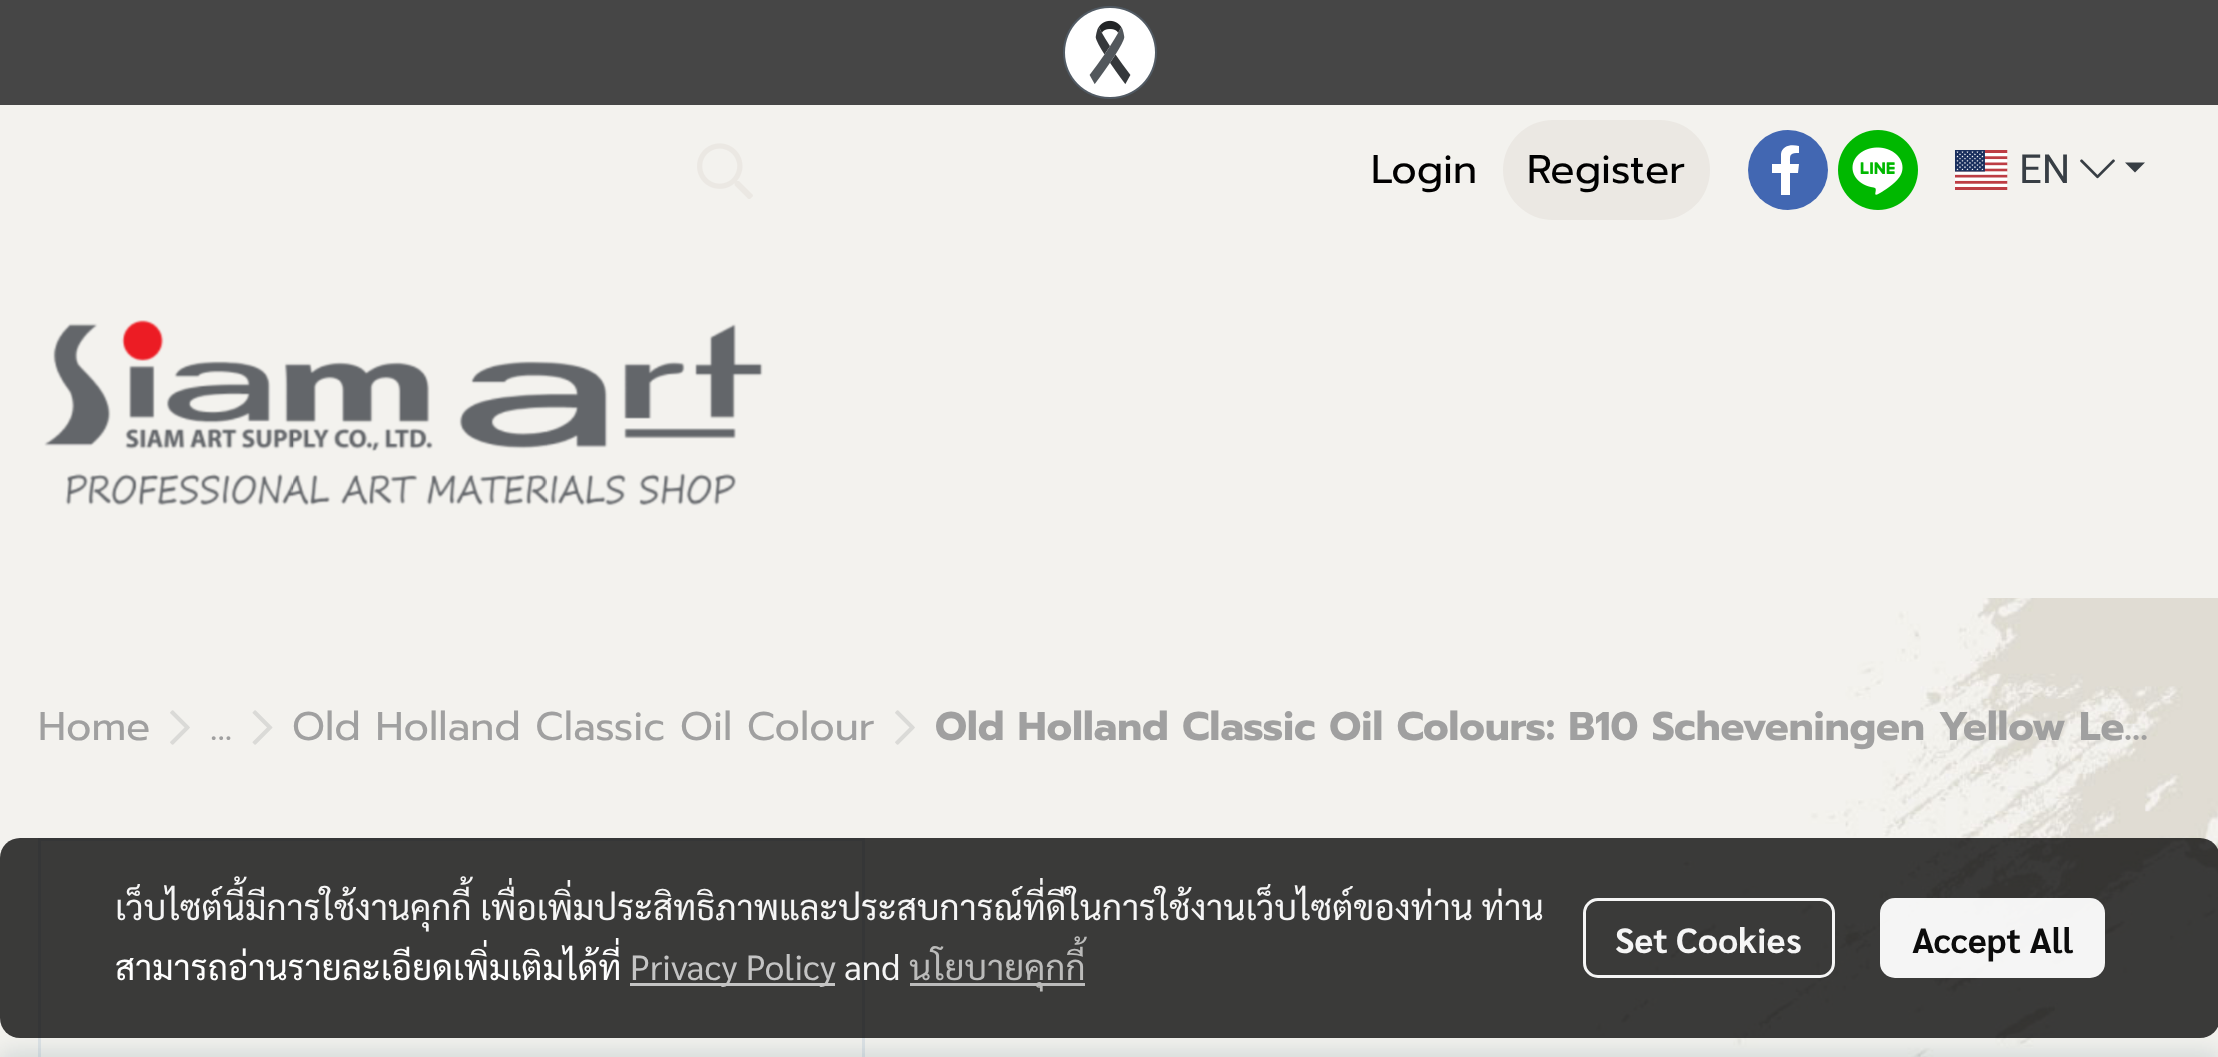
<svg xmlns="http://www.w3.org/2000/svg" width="2218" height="1057">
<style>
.a{font:40px Prompt;fill:#000}
.b{font:40px Roboto;fill:#373e44}
.c{font:40px Prompt;fill:#a0a0a0}
.d{font:bold 40px Prompt;fill:#a0a0a0}
.e{font:35px Sarabun;fill:#f5f5f5}
.f{font:35px Sarabun;fill:#fefefe}
.g{font:35px Sarabun;fill:#c4c4c4}
.h{font:35px Sarabun;fill:#bbbbba}
.i{font:bold 35px Sarabun;fill:#f5f5f5}
.j{font:bold 35px Sarabun;fill:#0c0c0c}
</style>
<rect width="100%" height="100%" fill="#fff"/>
<image href="1.png" x="0" y="598" width="2218" height="459"/>
<path fill="#464646" d="M0 0h2218v105H0z"/>
<image href="2.png" x="1063" y="6" width="94" height="93"/>
<path fill="#f3f2ee" d="M0 105h2218v493H0z"/>
<image href="3.png" x="697" y="143" width="56" height="56"/>
<rect fill="#ebe8e3" x="1503" y="120" width="207" height="100" rx="50"/>
<circle fill="#4267b2" cx="1788" cy="170" r="40"/>
<path fill="#fff" d="M1798 173h-8v22h-9v-22h-9v-9h9v-10c1-9 11-10 18-8v7c-10 0-9 2-9 11h9z"/>
<image href="4.png" x="1838" y="130" width="80" height="80"/>
<image href="5.png" x="1955" y="150" width="53" height="40"/>
<image href="6.png" x="2080" y="159" width="35" height="20"/>
<path fill="#373e44" d="M2125 162.5h20l-10 10z"/>
<image href="7.png" x="44" y="320" width="719" height="186"/>
<image href="8.png" x="170" y="710" width="20" height="35"/>
<image href="9.png" x="252" y="710" width="21" height="35"/>
<image href="8.png" x="895" y="710" width="20" height="35"/>
<path fill="none" stroke="#dee3e6" stroke-width="3" d="M39.5 839.5h824v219H39.5z"/>
<path fill="#00354a26" filter="blur(12.5px)" d="M0 1053h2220v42H0z"/>
<rect fill="#000000c2" y="838" width="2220" height="200" rx="20"/>
<path fill="#c4c4c4" d="M630 983h205v3H630z"/>
<path fill="#c2c2c2f2" d="M910 983h175v3H910z"/>
<rect fill="none" stroke="#fffffff2" stroke-width="3" x="1584.5" y="899.5" width="249" height="77" rx="13.5"/>
<rect fill="#fffffff2" x="1880" y="898" width="225" height="80" rx="15"/>
<text class="a" x="1371" y="183">Login</text>
<text class="a" x="1527" y="183">Register</text>
<text class="b" x="2019" y="183">EN</text>
<text class="c" x="38" y="740">Home</text>
<text class="c" x="210" y="740">...</text>
<text class="c" x="292" y="740">Old Holland Classic Oil Colour</text>
<text class="d" x="935" y="740">Old Holland Classic Oil Colours: B10 Scheveningen Yellow Le…</text>
<text class="e" x="115" y="920">เว็บไซต์นี้มีการใช้งานคุกกี้ เพื่อเพิ่มประสิทธิภาพและประสบการณ์ที่ดีในการใช้งานเว็บไซต์ของท่าน ท่าน</text>
<text class="f" x="115" y="980">สามารถอ่านรายละเอียดเพิ่มเติมได้ที่</text>
<text class="g" x="630" y="980">Privacy Policy</text>
<text class="e" x="844" y="980">and</text>
<text class="h" x="909" y="980">นโยบายคุกกี้</text>
<text class="i" x="1615" y="953">Set Cookies</text>
<text class="j" x="1912" y="953">Accept All</text>
</svg>
